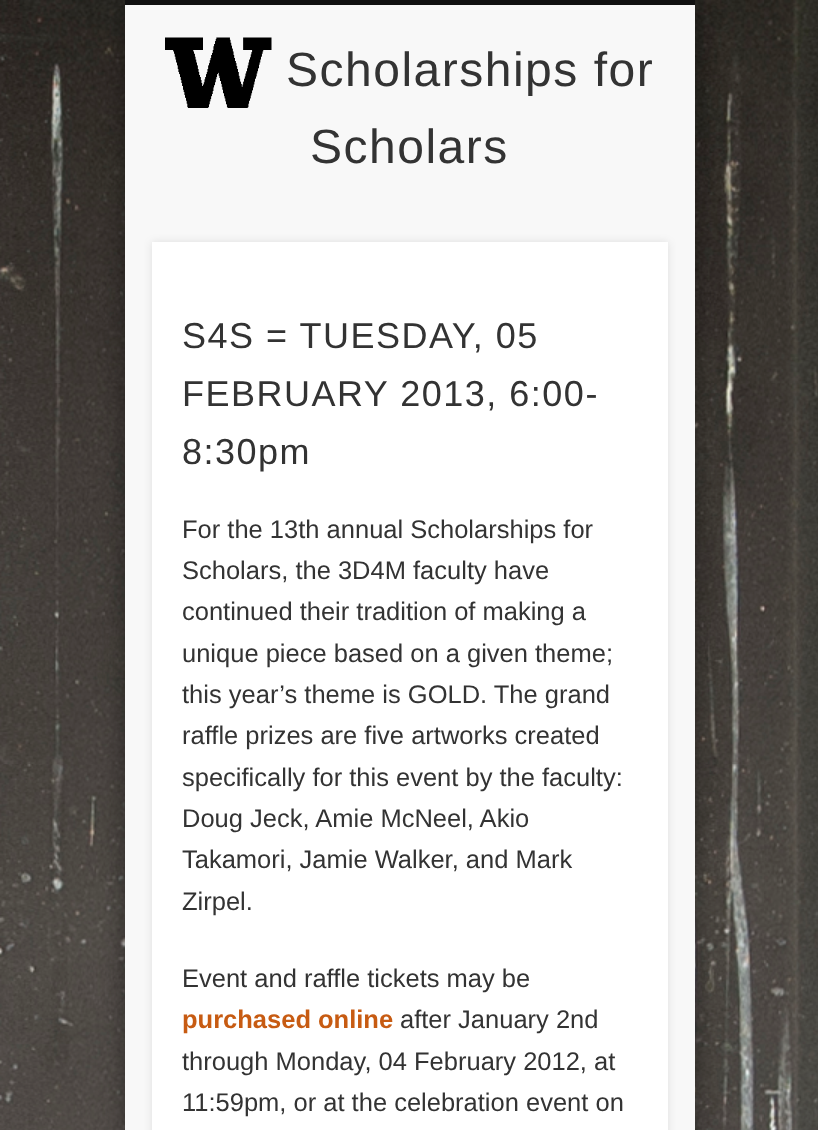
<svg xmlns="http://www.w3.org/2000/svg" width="818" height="1130">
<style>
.a{font:48px Liberation Sans;letter-spacing:1.5px;fill:#333}
.b{font:36px Liberation Sans;letter-spacing:1.5px;fill:#333}
.c{font:25.5px Liberation Sans;fill:#333}
.d{font:bold 25.5px Liberation Sans;fill:#c75b12}
</style>
<rect width="100%" height="100%" fill="#fff"/>
<image href="1.png" x="0" y="0" width="818" height="1130"/>
<path fill="#00000066" filter="blur(13.5px)" d="M125 0h570v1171H125z"/>
<path fill="#f8f8f8" d="M125 5h570v1125H125z"/>
<path fill="#111" d="M125 0h570v5H125z"/>
<image href="2.png" x="165" y="37" width="107" height="71"/>
<path fill="#0000001a" filter="blur(4px)" d="M152 242h516v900H152z"/>
<path fill="#fff" d="M152 242h516v888H152z"/>
<text class="a" x="286" y="86">Scholarships for</text>
<text class="a" x="310" y="163">Scholars</text>
<text class="b" x="182" y="348">S4S = TUESDAY, 05</text>
<text class="b" x="182" y="406">FEBRUARY 2013, 6:00-</text>
<text class="b" x="182" y="464">8:30pm</text>
<text class="c" x="182" y="538">For the 13th annual Scholarships for</text>
<text class="c" x="182" y="579">Scholars, the 3D4M faculty have</text>
<text class="c" x="182" y="620">continued their tradition of making a</text>
<text class="c" x="182" y="662">unique piece based on a given theme;</text>
<text class="c" x="182" y="703">this year’s theme is GOLD. The grand</text>
<text class="c" x="182" y="744">raffle prizes are five artworks created</text>
<text class="c" x="182" y="786">specifically for this event by the faculty:</text>
<text class="c" x="182" y="827">Doug Jeck, Amie McNeel, Akio</text>
<text class="c" x="182" y="868">Takamori, Jamie Walker, and Mark</text>
<text class="c" x="182" y="910">Zirpel.</text>
<text class="c" x="182" y="987">Event and raffle tickets may be</text>
<text class="d" x="182" y="1028">purchased online</text>
<text class="c" x="400" y="1028">after January 2nd</text>
<text class="c" x="182" y="1070">through Monday, 04 February 2012, at</text>
<text class="c" x="182" y="1111">11:59pm, or at the celebration event on</text>
</svg>
